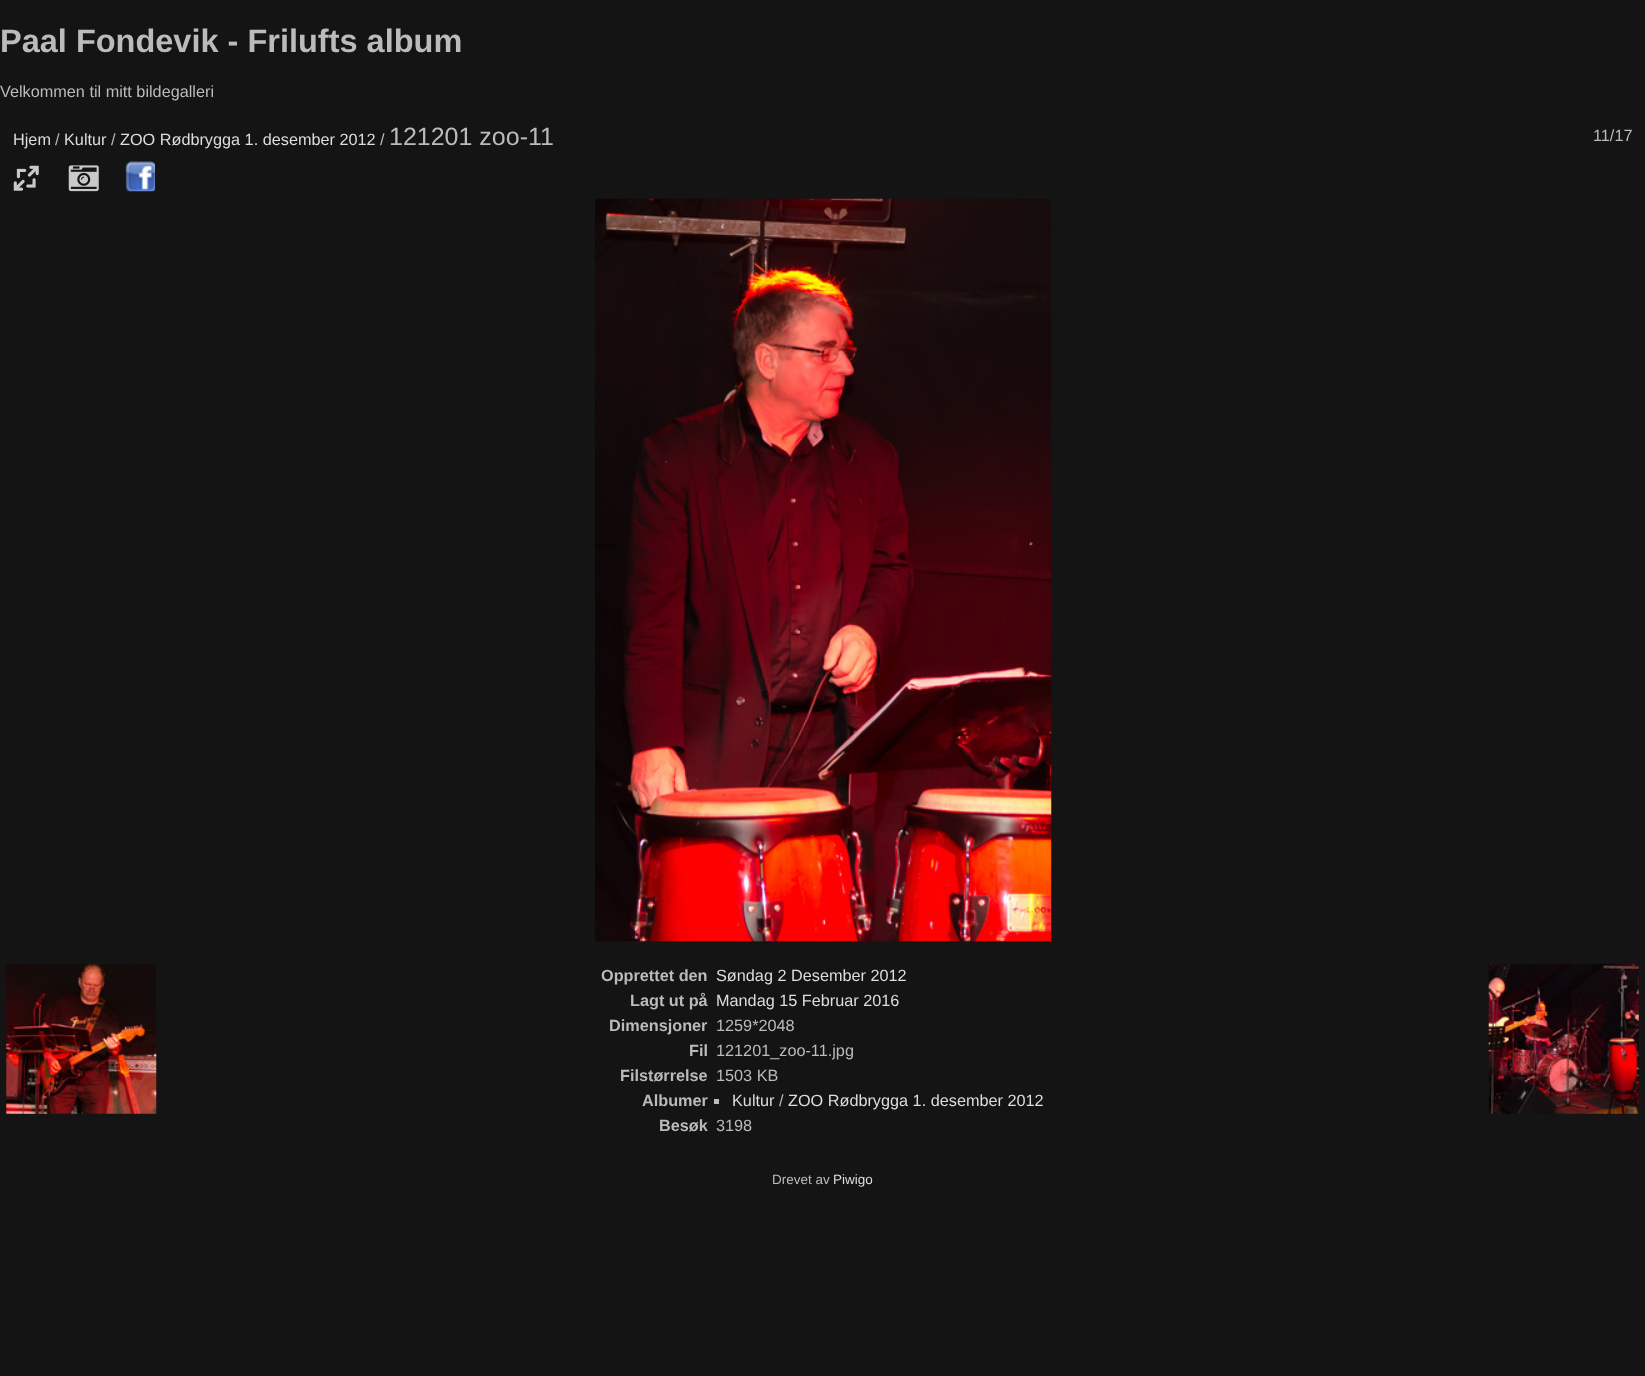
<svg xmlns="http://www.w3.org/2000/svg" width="1645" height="1376">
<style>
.a{font:bold 32.5px Liberation Sans;fill:#bbb}
.b{font:16.25px Liberation Sans;fill:#bbb}
.c{font:16.25px Liberation Sans;fill:#ddd}
.d{font:25px Liberation Sans;fill:#bbb}
.e{font:bold 16.25px Liberation Sans;fill:#bbb}
.f{font:13.5px Liberation Sans;fill:#bbb}
.g{font:13.5px Liberation Sans;fill:#ddd}
</style>
<rect width="100%" height="100%" fill="#141414"/>
<image href="1.png" x="13" y="165" width="26" height="26"/>
<image href="2.png" x="68" y="165" width="31" height="27"/>
<image href="3.png" x="125" y="161" width="30" height="31"/>
<image href="4.png" x="595" y="198" width="457" height="744"/>
<image href="5.png" x="6" y="963" width="151" height="151"/>
<image href="6.png" x="1488" y="963" width="151" height="151"/>
<path fill="#bbb" d="M714 1099h5v5H714z"/>
<text class="a" x="0" y="52">Paal Fondevik - Frilufts album</text>
<text class="b" x="0" y="97">Velkommen til mitt bildegalleri</text>
<text class="c" x="13" y="145">Hjem</text>
<text class="b" x="55" y="145">/</text>
<text class="c" x="64" y="145">Kultur</text>
<text class="b" x="111" y="145">/</text>
<text class="c" x="120" y="145">ZOO Rødbrygga 1. desember 2012</text>
<text class="b" x="380" y="145">/</text>
<text class="d" x="389" y="145">121201 zoo-11</text>
<text class="b" x="1593" y="141">11/17</text>
<text class="e" x="601" y="981">Opprettet den</text>
<text class="c" x="716" y="981">Søndag 2 Desember 2012</text>
<text class="e" x="630" y="1006">Lagt ut på</text>
<text class="c" x="716" y="1006">Mandag 15 Februar 2016</text>
<text class="e" x="609" y="1031">Dimensjoner</text>
<text class="b" x="716" y="1031">1259*2048</text>
<text class="e" x="689" y="1056">Fil</text>
<text class="b" x="716" y="1056">121201_zoo-11.jpg</text>
<text class="e" x="620" y="1081">Filstørrelse</text>
<text class="b" x="716" y="1081">1503 KB</text>
<text class="e" x="642" y="1106">Albumer</text>
<text class="c" x="732" y="1106">Kultur</text>
<text class="b" x="779" y="1106">/</text>
<text class="c" x="788" y="1106">ZOO Rødbrygga 1. desember 2012</text>
<text class="e" x="659" y="1131">Besøk</text>
<text class="b" x="716" y="1131">3198</text>
<text class="f" x="772" y="1184">Drevet av</text>
<text class="g" x="833" y="1184">Piwigo</text>
</svg>
